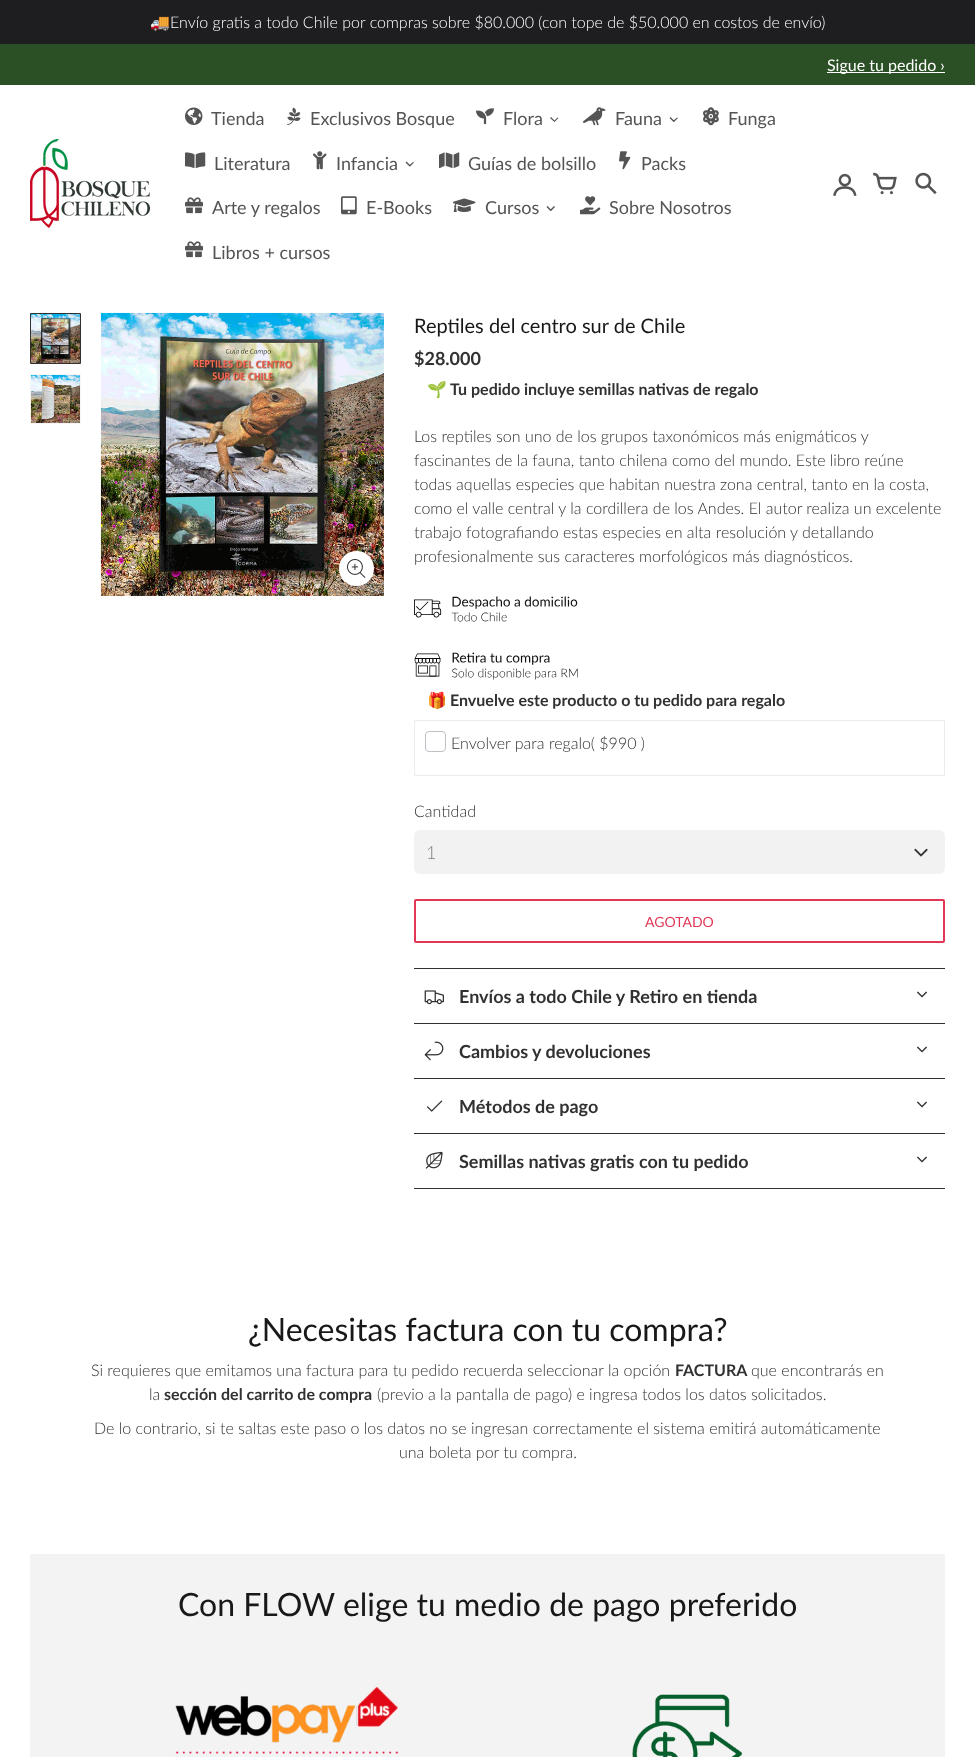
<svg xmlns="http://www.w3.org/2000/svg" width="975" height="1757">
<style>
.a{font:16px Noto Color Emoji;fill:#fff}
.b{font:300 16px Lato;fill:#fff}
.c{font:16px Lato;fill:#fff}
.d{font:18px Lato;fill:#545454}
.e{font:20px Lato;fill:#181818}
.f{font:bold 18px Lato;fill:#313131}
.g{font:bold 16px Noto Color Emoji;fill:#313131}
.h{font:bold 16px Lato;fill:#313131}
.i{font:300 16px Lato;fill:#313131}
.j{font:300 18px Lato;fill:#7e7e7e}
.k{font:14px Lato;fill:#e13655}
.l{font:32px Lato;fill:#181818}
</style>
<rect width="100%" height="100%" fill="#fff"/>
<path fill="#1e1e20" d="M0 0h975v44H0z"/>
<path fill="#2b5025" d="M0 44h975v41H0z"/>
<path fill="#fff" d="M827 72h118v1H827z"/>
<image href="1.png" x="30" y="139" width="120" height="89"/>
<image href="2.png" x="185" y="107" width="18" height="18"/>
<image href="3.png" x="287" y="107" width="14" height="18"/>
<image href="4.png" x="476" y="108" width="18" height="17"/>
<path fill="#545454" d="M557.5 117.5l1 .5l-4 4l-.5-1z"/>
<path fill="#545454" d="M551 117l4 4l-.5 1l-4.5-4z"/>
<image href="5.png" x="583" y="107" width="23" height="19"/>
<path fill="#545454" d="M677 117.5l1 .5l-4 4l-1-1z"/>
<path fill="#545454" d="M670.5 117l4 4l-1 1l-4-4z"/>
<image href="6.png" x="703" y="107" width="16" height="19"/>
<image href="7.png" x="185" y="152" width="21" height="17"/>
<image href="8.png" x="313" y="151" width="14" height="19"/>
<path fill="#545454" d="M413 162l1 .5l-4 4l-1-1z"/>
<path fill="#545454" d="M406.5 161.5l4 4l-1 1l-4-4z"/>
<image href="9.png" x="439" y="152" width="21" height="17"/>
<image href="10.png" x="619" y="151" width="12" height="19"/>
<image href="11.png" x="185" y="197" width="18" height="17"/>
<image href="12.png" x="341" y="196" width="16" height="19"/>
<image href="13.png" x="453" y="198" width="23" height="14"/>
<path fill="#545454" d="M554 206l1 1l-4 4l-1-1z"/>
<path fill="#545454" d="M547.5 206l4 4l-1 1l-4-4z"/>
<image href="14.png" x="580" y="196" width="21" height="19"/>
<image href="11.png" x="185" y="241" width="18" height="17"/>
<image href="15.png" x="833" y="173" width="24" height="23"/>
<image href="16.png" x="873" y="172" width="24" height="23"/>
<image href="17.png" x="915" y="172" width="22" height="23"/>
<path fill="none" stroke="#313131" d="M30.5 313.5h50v50H30.5z"/>
<image href="18.png" x="31" y="314" width="49" height="49"/>
<path fill="none" stroke="#f5f5f5" d="M30.5 374.5h50v49H30.5z"/>
<image href="19.png" x="31" y="375" width="49" height="48"/>
<image href="20.png" x="100" y="312" width="284" height="284"/>
<circle fill="#fff" cx="356.5" cy="568.5" r="17.5"/>
<image href="21.png" x="347" y="559" width="19" height="19"/>
<image href="22.png" x="414" y="596" width="164" height="26"/>
<image href="23.png" x="414" y="652" width="164" height="28"/>
<path fill="none" stroke="#ebebeb" d="M414.5 720.5h530v55H414.5z"/>
<rect fill="none" stroke="#bdc1c6" x="425.5" y="731.5" width="20" height="20" rx="3.5"/>
<rect fill="#f2f2f2" x="414" y="830" width="531" height="44" rx="6"/>
<image href="24.png" x="914" y="848" width="14" height="9"/>
<rect fill="none" stroke="#e13655" stroke-width="2" x="415" y="900" width="529" height="42" rx="1"/>
<path fill="#313131" d="M414 968h531v1H414z"/>
<path fill="#313131" d="M414 1023h531v1H414z"/>
<image href="25.png" x="424" y="990" width="20" height="15"/>
<image href="26.png" x="917" y="991" width="10" height="7"/>
<path fill="#313131" d="M414 1078h531v1H414z"/>
<image href="27.png" x="424" y="1041" width="20" height="20"/>
<image href="26.png" x="917" y="1046" width="10" height="7"/>
<path fill="#313131" d="M414 1133h531v1H414z"/>
<image href="28.png" x="427" y="1100" width="16" height="12"/>
<image href="26.png" x="917" y="1101" width="10" height="7"/>
<path fill="#313131" d="M414 1188h531v1H414z"/>
<image href="29.png" x="425" y="1151" width="18" height="18"/>
<image href="26.png" x="917" y="1156" width="10" height="7"/>
<path fill="#f3f3f3" d="M30 1554h915v203H30z"/>
<image href="30.png" x="175" y="1686" width="224" height="68"/>
<image href="31.png" x="632" y="1694" width="110" height="63"/>
<text class="a" x="150" y="28">🚚</text>
<text class="b" x="170" y="28">Envío gratis a todo Chile por compras sobre $80.000 (con tope de $50.000 en costos de envío)</text>
<text class="c" x="827" y="71">Sigue tu pedido ›</text>
<text class="d" x="211" y="125">Tienda</text>
<text class="d" x="310" y="125">Exclusivos Bosque</text>
<text class="d" x="503" y="125">Flora</text>
<text class="d" x="615" y="125">Fauna</text>
<text class="d" x="728" y="125">Funga</text>
<text class="d" x="214" y="170">Literatura</text>
<text class="d" x="336" y="170">Infancia</text>
<text class="d" x="468" y="170">Guías de bolsillo</text>
<text class="d" x="641" y="170">Packs</text>
<text class="d" x="212" y="214">Arte y regalos</text>
<text class="d" x="366" y="214">E-Books</text>
<text class="d" x="485" y="214">Cursos</text>
<text class="d" x="609" y="214">Sobre Nosotros</text>
<text class="d" x="212" y="259">Libros + cursos</text>
<text class="e" x="414" y="333">Reptiles del centro sur de Chile</text>
<text class="f" x="414" y="365">$28.000</text>
<text class="g" x="427" y="395">🌱</text>
<text class="h" x="450" y="395">Tu pedido incluye semillas nativas de regalo</text>
<text class="i" x="414" y="442">Los reptiles son uno de los grupos taxonómicos más enigmáticos y</text>
<text class="i" x="414" y="466">fascinantes de la fauna, tanto chilena como del mundo. Este libro reúne</text>
<text class="i" x="414" y="490">todas aquellas especies que habitan nuestra zona central, tanto en la costa,</text>
<text class="i" x="414" y="514">como el valle central y la cordillera de los Andes. El autor realiza un excelente</text>
<text class="i" x="414" y="538">trabajo fotografiando estas especies en alta resolución y detallando</text>
<text class="i" x="414" y="562">profesionalmente sus caracteres morfológicos más diagnósticos.</text>
<text class="g" x="427" y="706">🎁</text>
<text class="h" x="450" y="706">Envuelve este producto o tu pedido para regalo</text>
<text class="i" x="451" y="749">Envolver para regalo( $990 )</text>
<text class="i" x="414" y="817">Cantidad</text>
<text class="j" x="426" y="859">1</text>
<text class="k" x="645" y="927">AGOTADO</text>
<text class="f" x="459" y="1003">Envíos a todo Chile y Retiro en tienda</text>
<text class="f" x="459" y="1058">Cambios y devoluciones</text>
<text class="f" x="459" y="1113">Métodos de pago</text>
<text class="f" x="459" y="1168">Semillas nativas gratis con tu pedido</text>
<text class="l" x="248" y="1341">¿Necesitas factura con tu compra?</text>
<text class="i" x="91" y="1376">Si requieres que emitamos una factura para tu pedido recuerda seleccionar la opción</text>
<text class="h" x="675" y="1376">FACTURA</text>
<text class="i" x="751" y="1376">que encontrarás en</text>
<text class="i" x="149" y="1400">la</text>
<text class="h" x="164" y="1400">sección del carrito de compra</text>
<text class="i" x="377" y="1400">(previo a la pantalla de pago) e ingresa todos los datos solicitados.</text>
<text class="i" x="94" y="1434">De lo contrario, si te saltas este paso o los datos no se ingresan correctamente el sistema emitirá automáticamente</text>
<text class="i" x="399" y="1458">una boleta por tu compra.</text>
<text class="l" x="178" y="1616">Con FLOW elige tu medio de pago preferido</text>
</svg>
